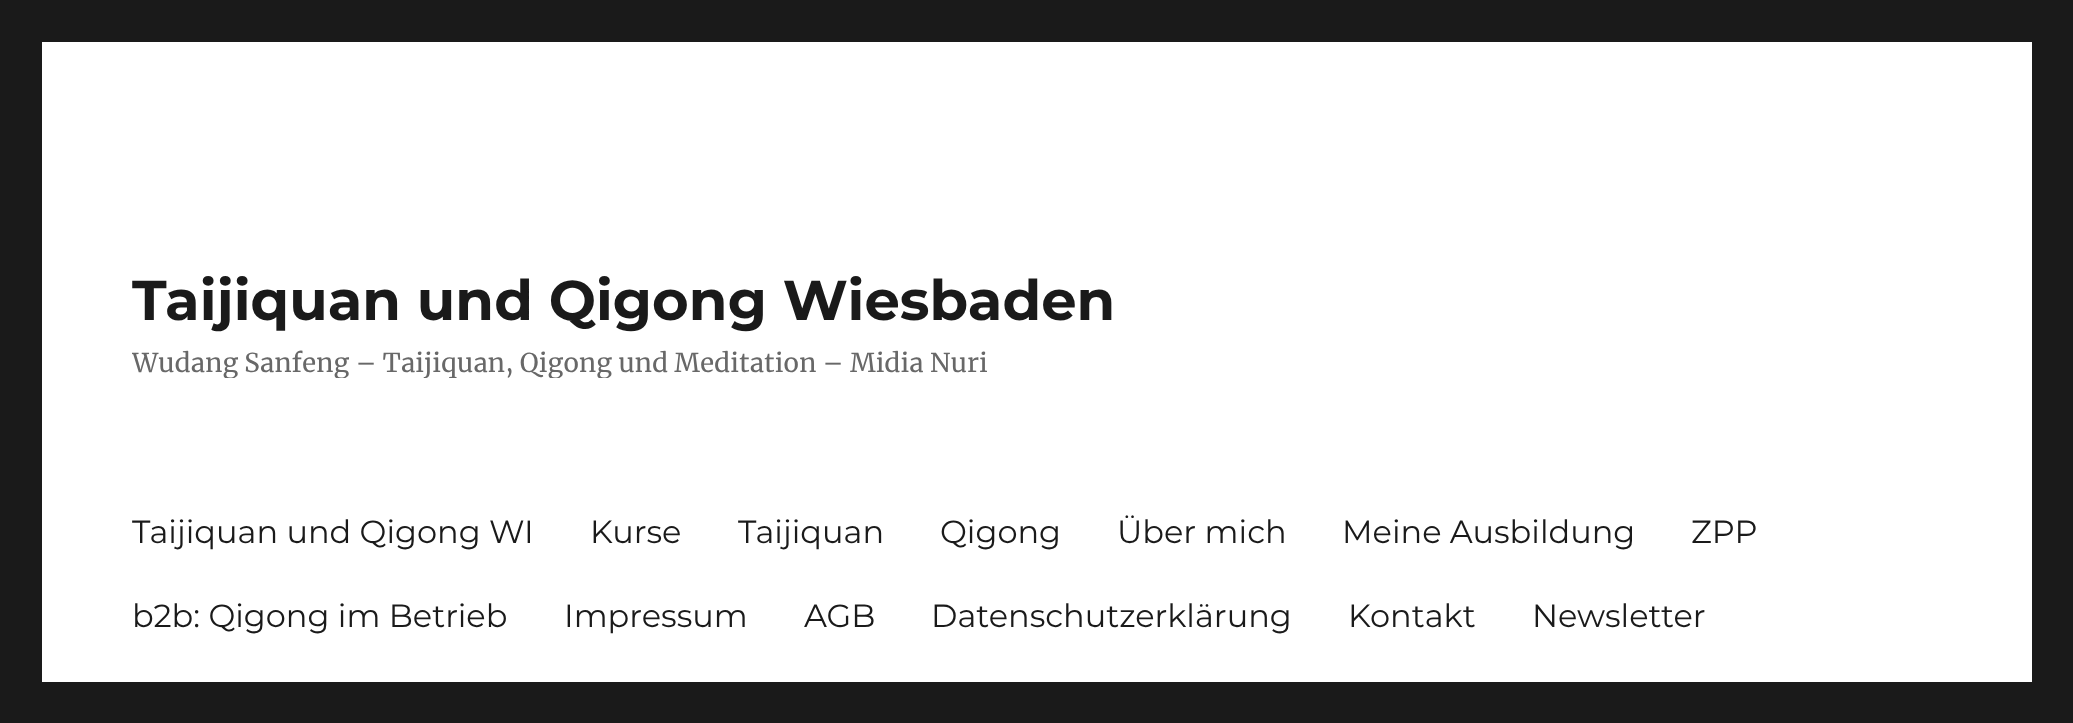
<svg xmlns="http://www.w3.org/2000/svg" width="2073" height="723">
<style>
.a{font:100 56px Montserrat;fill:#1a1a1a}
.b{font:26px Merriweather;fill:#686868}
.c{font:100 32px 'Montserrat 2';fill:#1a1a1a}
</style>
<defs>
<clipPath id="clip1"><path d="M132 266h984v112H132z"/></clipPath>
</defs>
<rect width="100%" height="100%" fill="#1a1a1a"/>
<path fill="#fff" d="M42 42h1990v640H42z"/>
<text class="a" x="132" y="320">Taijiquan und Qigong Wiesbaden</text>
<g clip-path="url(#clip1)">
<text class="b" x="132" y="372">Wudang Sanfeng – Taijiquan, Qigong und Meditation – Midia Nuri</text>
</g>
<text class="c" x="132" y="543">Taijiquan und Qigong WI</text>
<text class="c" x="590" y="543">Kurse</text>
<text class="c" x="738" y="543">Taijiquan</text>
<text class="c" x="940" y="543">Qigong</text>
<text class="c" x="1117" y="543">Über mich</text>
<text class="c" x="1342" y="543">Meine Ausbildung</text>
<text class="c" x="1691" y="543">ZPP</text>
<text class="c" x="132" y="627">b2b: Qigong im Betrieb</text>
<text class="c" x="564" y="627">Impressum</text>
<text class="c" x="804" y="627">AGB</text>
<text class="c" x="931" y="627">Datenschutzerklärung</text>
<text class="c" x="1348" y="627">Kontakt</text>
<text class="c" x="1532" y="627">Newsletter</text>
</svg>
